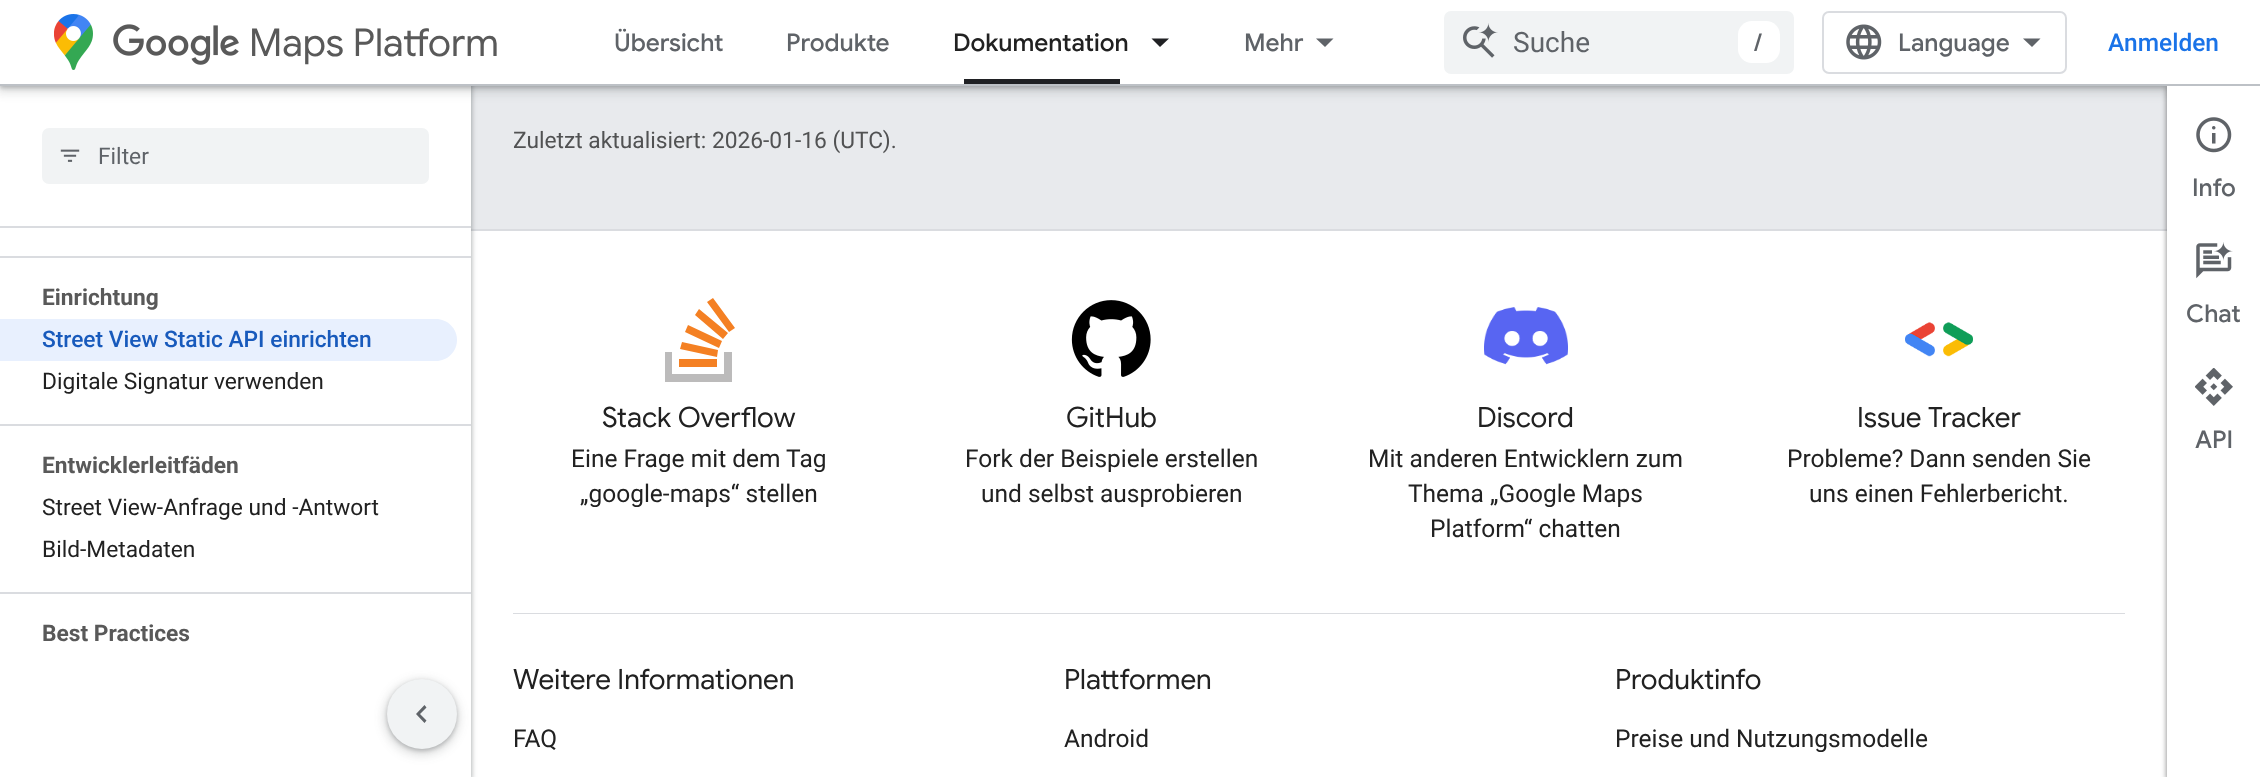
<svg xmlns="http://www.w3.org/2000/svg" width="2260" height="777">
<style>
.a{font:38.5px Google Sans;fill:#595959}
.b{font:500 24.5px Google Sans;fill:#5f6368}
.c{font:500 24.5px Google Sans;fill:#212121}
.d{font:28px Roboto;fill:#5f6368}
.e{font:500 24.5px Roboto;fill:#1a73e8}
.f{font:22.75px Roboto;fill:#5f6368}
.g{font:bold 22.75px Roboto;fill:#595959}
.h{font:500 22.75px Roboto;fill:#185abc}
.i{font:22.75px Roboto;fill:#212121}
.j{font:22.75px Roboto;fill:#515253}
.k{font:28px Google Sans;fill:#212121}
.l{font:24.5px Roboto;fill:#212121}
</style>
<rect width="100%" height="100%" fill="#e8eaed"/>
<path fill="#fff" d="M471 231h1696v546H471z"/>
<path fill="#dadce0" d="M471 229h1696v2H471z"/>
<path fill="#3c404326" filter="blur(2.5px)" d="M-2 0h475v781H-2z"/>
<path fill="#3c40434d" filter="blur(2px)" d="M0 2h471v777H0z"/>
<path fill="#fff" d="M0 228h471v549H0z"/>
<path fill="#fff" d="M0 86h471v140H0z"/>
<path fill="#3c404326" filter="blur(5px)" d="M-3 -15h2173v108H-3z"/>
<path fill="#3c40434d" filter="blur(2px)" d="M0 -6h2167v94H0z"/>
<path fill="#00000026" filter="blur(2.5px)" d="M2165 84h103v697H2165z"/>
<path fill="#0000004d" filter="blur(2px)" d="M2167 86h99v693H2167z"/>
<path fill="#fff" d="M0 0h2260v84H0z"/>
<path fill="#bdc1c6" d="M0 84h2260v2H0z"/>
<image href="1.png" x="54" y="14" width="39" height="56"/>
<image href="2.png" x="113" y="24" width="126" height="41"/>
<path fill="#202124" d="M964 79h156v5H964z"/>
<path fill="#202124" d="M1151.5 38.5h17.5l-9 8.5z"/>
<path fill="#5f6368" d="M1316 38.5h17.5l-8.5 8.5z"/>
<rect fill="#f1f3f4" x="1444" y="11" width="350" height="63" rx="7"/>
<image href="3.png" x="1463" y="23" width="35" height="35"/>
<rect fill="#fff" x="1738" y="21" width="42" height="42" rx="14"/>
<rect fill="none" stroke="#dadce0" stroke-width="2" x="1823" y="12" width="243" height="61" rx="6"/>
<image href="4.png" x="1846" y="24" width="36" height="36"/>
<path fill="#5f6368" d="M2032 47l-9-8.5h17.5z"/>
<path fill="#dadce0" d="M0 226h471v2H0z"/>
<rect fill="#f1f3f4" x="42" y="128" width="387" height="56" rx="7"/>
<image href="5.png" x="60" y="149" width="20" height="13"/>
<path fill="#dadce0" d="M0 256h471v2H0z"/>
<path fill="#e8f0fe" d="M0 319h436c11.5 0 21 9.5 21 21c0 11.5-9.5 21-21 21h-436z"/>
<path fill="#dadce0" d="M0 424h471v2H0z"/>
<path fill="#dadce0" d="M0 592h471v2H0z"/>
<path fill="#fff" d="M2167 86h93v691H2167z"/>
<image href="6.png" x="2196" y="117" width="36" height="36"/>
<image href="7.png" x="2196" y="242" width="37" height="37"/>
<image href="8.png" x="2195" y="368" width="38" height="38"/>
<path fill="#dadce0" d="M513 613h1612v1H513z"/>
<path fill="#bcbbbb" d="M724 374v-22h8v30h-67v-30h7v22z"/>
<path fill="#f48023" d="M680 349l37 8l1-7l-36-8zm5-17l34 16l3-7l-34-16zm10-17l28 24l5-6l-29-24zm18-17l-6 4l22 30l6-4zm-34 69h38v-8h-38z"/>
<image href="9.png" x="1071" y="300" width="80" height="77"/>
<image href="10.png" x="1484" y="307" width="84" height="58"/>
<image href="11.png" x="1905" y="322" width="68" height="35"/>
<rect fill="#3c404326" filter="blur(5px)" x="383" y="679" width="77" height="77" rx="38.5"/>
<rect fill="#3c40434d" filter="blur(2px)" x="387" y="681" width="70" height="70" rx="35"/>
<circle fill="#f1f3f4" cx="422" cy="714" r="35"/>
<path fill="#5f6368" d="M426.5 707.5l-6.5 6.5l6.5 6.5l-2 2.5l-8.5-9l8.5-9z"/>
<text class="a" x="249" y="56">Maps Platform</text>
<text class="b" x="614" y="51">Übersicht</text>
<text class="b" x="786" y="51">Produkte</text>
<text class="c" x="953" y="51">Dokumentation</text>
<text class="b" x="1244" y="51">Mehr</text>
<text class="d" x="1513" y="52">Suche</text>
<text class="b" x="1754" y="51">/</text>
<text class="b" x="1898" y="51">Language</text>
<text class="e" x="2108" y="51">Anmelden</text>
<text class="f" x="98" y="164">Filter</text>
<text class="g" x="42" y="305">Einrichtung</text>
<text class="h" x="42" y="347">Street View Static API einrichten</text>
<text class="i" x="42" y="389">Digitale Signatur verwenden</text>
<text class="g" x="42" y="473">Entwicklerleitfäden</text>
<text class="i" x="42" y="515">Street View-Anfrage und -Antwort</text>
<text class="i" x="42" y="557">Bild-Metadaten</text>
<text class="g" x="42" y="641">Best Practices</text>
<text class="j" x="513" y="148">Zuletzt aktualisiert: 2026-01-16 (UTC).</text>
<text class="b" x="2192" y="196">Info</text>
<text class="b" x="2186" y="322">Chat</text>
<text class="b" x="2195" y="448">API</text>
<text class="k" x="602" y="427">Stack Overflow</text>
<text class="l" x="571" y="467">Eine Frage mit dem Tag</text>
<text class="l" x="580" y="502">„google-maps“ stellen</text>
<text class="k" x="1066" y="427">GitHub</text>
<text class="l" x="965" y="467">Fork der Beispiele erstellen</text>
<text class="l" x="981" y="502">und selbst ausprobieren</text>
<text class="k" x="1477" y="427">Discord</text>
<text class="l" x="1368" y="467">Mit anderen Entwicklern zum</text>
<text class="l" x="1408" y="502">Thema „Google Maps</text>
<text class="l" x="1430" y="537">Platform“ chatten</text>
<text class="k" x="1857" y="427">Issue Tracker</text>
<text class="l" x="1787" y="467">Probleme? Dann senden Sie</text>
<text class="l" x="1809" y="502">uns einen Fehlerbericht.</text>
<text class="k" x="513" y="689">Weitere Informationen</text>
<text class="l" x="513" y="747">FAQ</text>
<text class="k" x="1064" y="689">Plattformen</text>
<text class="l" x="1064" y="747">Android</text>
<text class="k" x="1615" y="689">Produktinfo</text>
<text class="l" x="1615" y="747">Preise und Nutzungsmodelle</text>
</svg>
